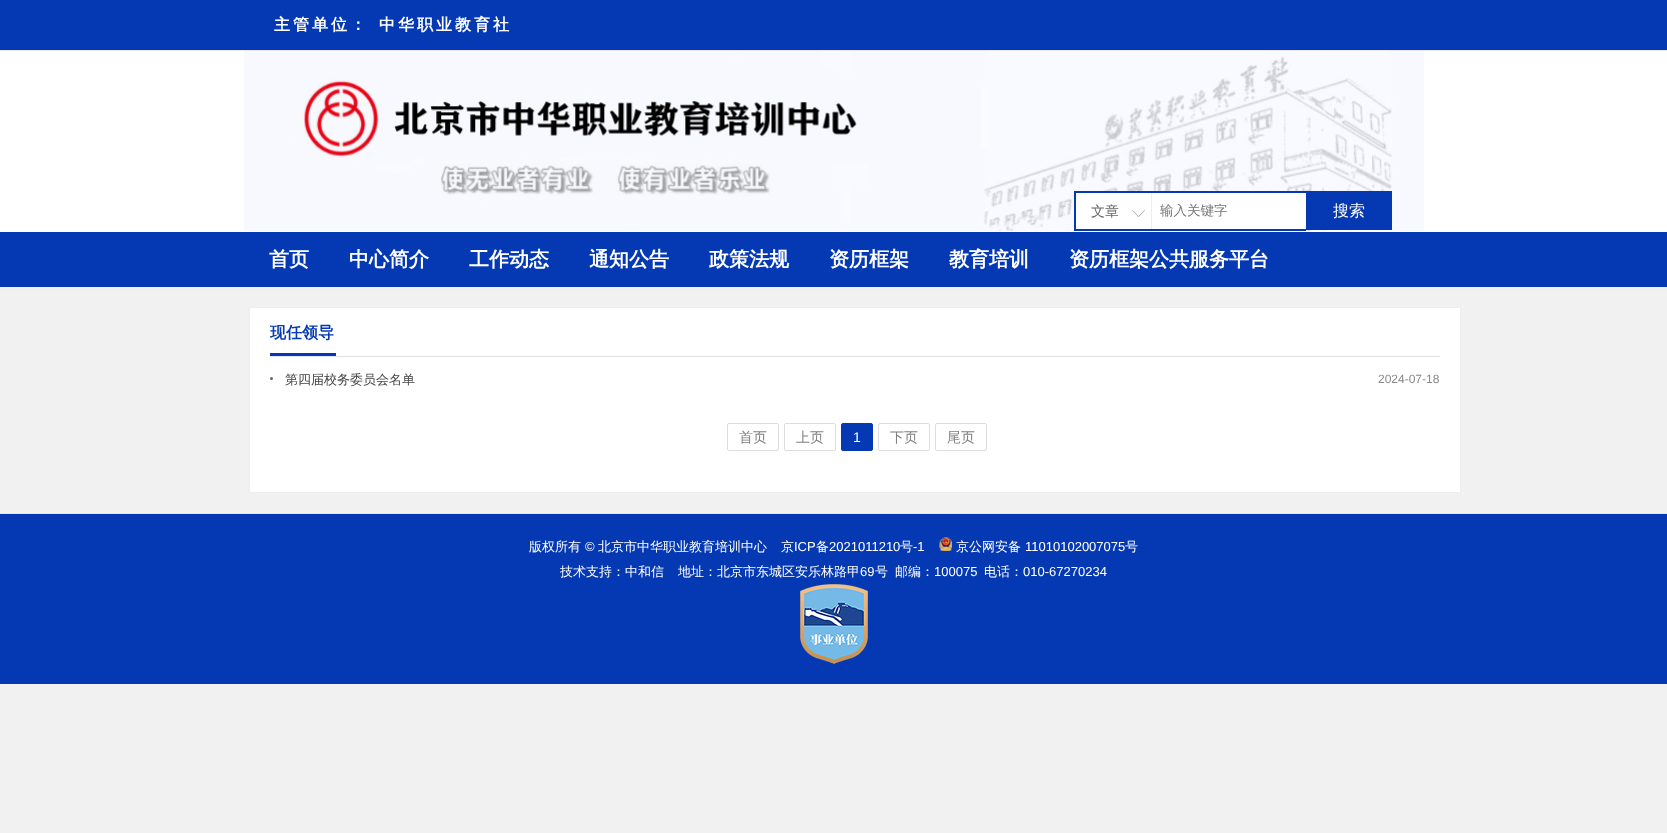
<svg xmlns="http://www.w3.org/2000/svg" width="1667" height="833">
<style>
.a{font:bold 16px WenQuanYi Zen Hei;letter-spacing:3px;fill:#fff}
.b{font:500 14px WenQuanYi Zen Hei;fill:#666}
.c{font:500 13.5px WenQuanYi Zen Hei;fill:#757575}
.d{font:500 16px WenQuanYi Zen Hei;fill:#fff}
.e{font:bold 20px WenQuanYi Zen Hei;fill:#fff}
.f{font:bold 16px WenQuanYi Zen Hei;fill:#0439b3}
.g{font:500 13px WenQuanYi Zen Hei;fill:#454545}
.h{font:12px Liberation Sans;fill:#888}
.i{font:500 14px WenQuanYi Zen Hei;fill:#808080}
.j{font:14px Liberation Sans;fill:#fff}
.k{font:500 13px WenQuanYi Zen Hei;fill:#fff}
.l{font:13px Liberation Sans;fill:#fff}
</style>
<rect width="100%" height="100%" fill="#f1f1f1"/>
<path fill="#0439b3" d="M0 0h1667v50H0z"/>
<path fill="#e8e8e8" d="M0 50h1667v1H0z"/>
<path fill="#fff" d="M0 51h1667v181H0z"/>
<image href="1.png" x="244" y="51" width="1180" height="180"/>
<path fill="#fff" d="M1076 193h230v36H1076z"/>
<path fill="#0439b3" d="M1074 191h232v2H1074z"/>
<path fill="#0439b3" d="M1074 229h232v2H1074z"/>
<path fill="#0439b3" d="M1074 191h2v40H1074z"/>
<path fill="#eee" d="M1151 193h1v36H1151z"/>
<image href="2.png" x="1132" y="210" width="13" height="7"/>
<path fill="#0439b3" d="M1306 191h86v39H1306z"/>
<path fill="#0439b3" d="M0 232h1667v55H0z"/>
<path fill="#fff" stroke="#eee" d="M249.5 307.5h1211v185H249.5z"/>
<path fill="#e4e3e3" d="M270 356h1170v1H270z"/>
<path fill="#0439b3" d="M270 353h66v3H270z"/>
<circle fill="#666" cx="271.5" cy="378.5" r="1.5"/>
<rect fill="none" stroke="#ddd" x="727.5" y="423.5" width="51" height="27" rx="1.5"/>
<rect fill="none" stroke="#ddd" x="784.5" y="423.5" width="51" height="27" rx="1.5"/>
<rect fill="#0439b3" stroke="#0439b3" x="841.5" y="423.5" width="31" height="27" rx="1.5"/>
<rect fill="none" stroke="#ddd" x="878.5" y="423.5" width="51" height="27" rx="1.5"/>
<rect fill="none" stroke="#ddd" x="935.5" y="423.5" width="51" height="27" rx="1.5"/>
<path fill="#0439b3" d="M0 514h1667v170H0z"/>
<path fill="#e8e8e8" d="M0 513h1667v1H0z"/>
<image href="3.png" x="939" y="537" width="13" height="14"/>
<image href="4.png" x="800" y="584" width="68" height="80"/>
<text class="a" x="274" y="30">主管单位：</text>
<text class="a" x="379" y="30">中华职业教育社</text>
<text class="b" x="1091" y="216">文章</text>
<text class="c" x="1160" y="215">输入关键字</text>
<text class="d" x="1333" y="216">搜索</text>
<text class="e" x="269" y="266">首页</text>
<text class="e" x="349" y="266">中心简介</text>
<text class="e" x="469" y="266">工作动态</text>
<text class="e" x="589" y="266">通知公告</text>
<text class="e" x="709" y="266">政策法规</text>
<text class="e" x="829" y="266">资历框架</text>
<text class="e" x="949" y="266">教育培训</text>
<text class="e" x="1069" y="266">资历框架公共服务平台</text>
<text class="f" x="270" y="338">现任领导</text>
<text class="g" x="285" y="384">第四届校务委员会名单</text>
<text class="h" x="1378" y="383">2024-07-18</text>
<text class="i" x="739" y="442">首页</text>
<text class="i" x="796" y="442">上页</text>
<text class="j" x="853" y="442">1</text>
<text class="i" x="890" y="442">下页</text>
<text class="i" x="947" y="442">尾页</text>
<text class="k" x="529" y="551">版权所有</text>
<text class="l" x="585" y="551">©</text>
<text class="k" x="598" y="551">北京市中华职业教育培训中心</text>
<text class="k" x="781" y="551">京</text>
<text class="l" x="794" y="551">ICP</text>
<text class="k" x="816" y="551">备</text>
<text class="l" x="829" y="551">2021011210</text>
<text class="k" x="900" y="551">号</text>
<text class="l" x="913" y="551">-1</text>
<text class="k" x="956" y="551">京公网安备</text>
<text class="l" x="1025" y="551">11010102007075</text>
<text class="k" x="1125" y="551">号</text>
<text class="k" x="560" y="576">技术支持：中和信</text>
<text class="k" x="678" y="576">地址：北京市东城区安乐林路甲</text>
<text class="l" x="860" y="576">69</text>
<text class="k" x="875" y="576">号</text>
<text class="k" x="895" y="576">邮编：</text>
<text class="l" x="934" y="576">100075</text>
<text class="k" x="984" y="576">电话：</text>
<text class="l" x="1023" y="576">010-67270234</text>
</svg>
